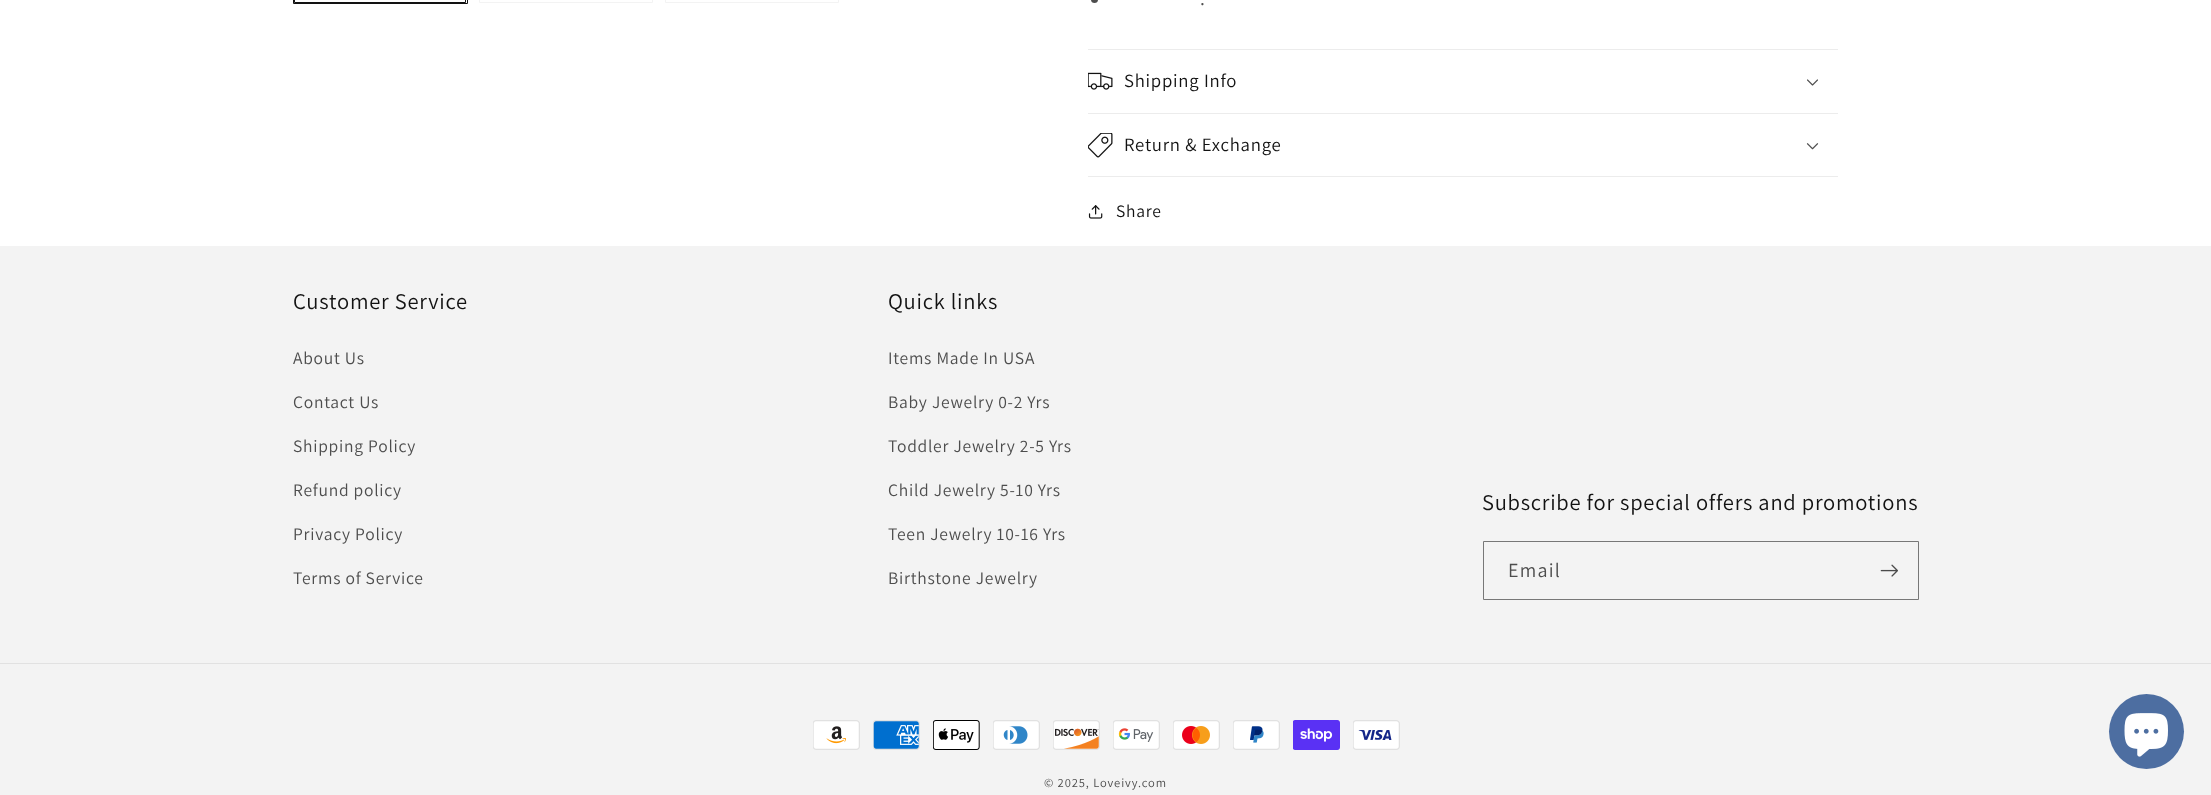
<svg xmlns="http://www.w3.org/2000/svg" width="2211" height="795">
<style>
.a{font:20px Assistant;letter-spacing:0.75px;fill:#4d4d4d}
.b{font:18.75px Assistant;letter-spacing:0.75px;fill:#121212}
.c{font:17.5px Assistant;letter-spacing:0.75px;fill:#121212}
.d{font:22.5px Assistant;letter-spacing:0.75px;fill:#121212}
.e{font:17.5px Assistant;letter-spacing:0.75px;fill:#4d4d4d}
.f{font:20px Assistant;letter-spacing:1.25px;fill:#4d4d4d}
.g{font:12.5px Assistant;letter-spacing:0.9px;fill:#4d4d4d}
</style>
<rect width="100%" height="100%" fill="#fff"/>
<path fill="none" stroke="#121212" d="M293.5 -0.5h174v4H293.5z"/>
<path fill="none" stroke="#121212" d="M294.5 -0.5h171v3H294.5z"/>
<path fill="none" stroke="#f3f3f3" d="M479.5 -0.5h173v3H479.5z"/>
<path fill="none" stroke="#f3f3f3" d="M665.5 -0.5h173v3H665.5z"/>
<circle fill="#4d4d4d" cx="1094.5" cy="-0.5" r="3.5"/>
<path fill="#ececec" d="M1088 49h750v1H1088z"/>
<path fill="#ececec" d="M1088 113h750v1H1088z"/>
<image href="1.png" x="1088" y="72" width="25" height="18"/>
<image href="2.png" x="1807" y="79" width="11" height="7"/>
<path fill="#ececec" d="M1088 176h750v1H1088z"/>
<image href="3.png" x="1088" y="133" width="25" height="25"/>
<image href="4.png" x="1806" y="143" width="13" height="7"/>
<image href="5.png" x="1088" y="205" width="15" height="14"/>
<path fill="#f3f3f3" d="M0 246h2211v549H0z"/>
<path fill="none" stroke="#777" d="M1483.5 541.5h435v58H1483.5z"/>
<image href="6.png" x="1880" y="564" width="18" height="13"/>
<path fill="#e1e1e1" d="M0 663h2211v1H0z"/>
<image href="7.png" x="813" y="720" width="47" height="30"/>
<image href="8.png" x="873" y="720" width="47" height="30"/>
<image href="9.png" x="933" y="720" width="47" height="30"/>
<image href="10.png" x="993" y="720" width="47" height="30"/>
<image href="11.png" x="1053" y="720" width="47" height="30"/>
<image href="12.png" x="1113" y="720" width="47" height="30"/>
<image href="13.png" x="1173" y="720" width="47" height="30"/>
<image href="14.png" x="1233" y="720" width="47" height="30"/>
<image href="15.png" x="1293" y="720" width="47" height="30"/>
<image href="16.png" x="1353" y="720" width="47" height="30"/>
<circle fill="#4d6ea1" cx="2146.5" cy="731.5" r="37.5"/>
<image href="17.png" x="2124" y="713" width="44" height="44"/>
<text class="a" x="1200" y="5">.</text>
<text class="b" x="1124" y="87">Shipping Info</text>
<text class="b" x="1124" y="151">Return &amp; Exchange</text>
<text class="c" x="1116" y="217">Share</text>
<text class="d" x="293" y="309">Customer Service</text>
<text class="e" x="293" y="364">About Us</text>
<text class="e" x="293" y="408">Contact Us</text>
<text class="e" x="293" y="452">Shipping Policy</text>
<text class="e" x="293" y="496">Refund policy</text>
<text class="e" x="293" y="540">Privacy Policy</text>
<text class="e" x="293" y="584">Terms of Service</text>
<text class="d" x="888" y="309">Quick links</text>
<text class="e" x="888" y="364">Items Made In USA</text>
<text class="e" x="888" y="408">Baby Jewelry 0-2 Yrs</text>
<text class="e" x="888" y="452">Toddler Jewelry 2-5 Yrs</text>
<text class="e" x="888" y="496">Child Jewelry 5-10 Yrs</text>
<text class="e" x="888" y="540">Teen Jewelry 10-16 Yrs</text>
<text class="e" x="888" y="584">Birthstone Jewelry</text>
<text class="d" x="1482" y="510">Subscribe for special offers and promotions</text>
<text class="f" x="1508" y="577">Email</text>
<text class="g" x="1044" y="787">© 2025, Loveivy.com</text>
</svg>
